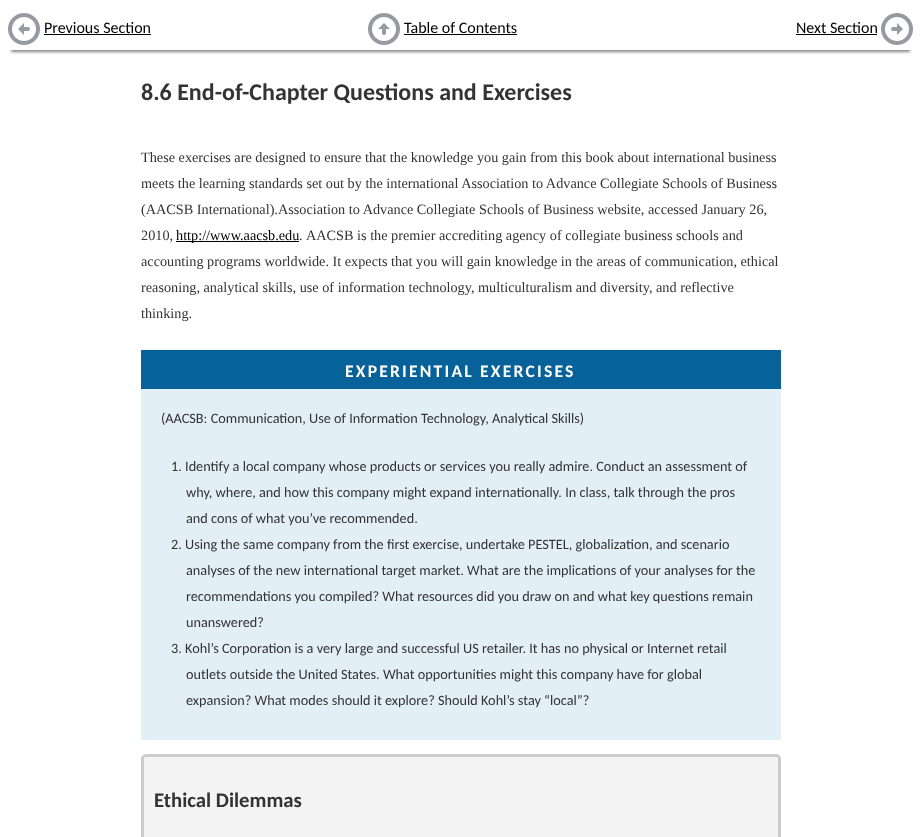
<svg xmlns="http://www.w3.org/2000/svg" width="921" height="837">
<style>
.a{font:16px Carlito;fill:#000}
.b{font:bold 24px Carlito;fill:#333}
.c{font:14.25px Liberation Serif;fill:#333}
.d{font:14.25px Liberation Serif;fill:#000}
.e{font:bold 17.6px Carlito;letter-spacing:2.2px;fill:#fff}
.f{font:14.25px Carlito;fill:#333}
.g{font:bold 20.75px Carlito;fill:#333}
</style>
<defs>
<clipPath id="clip1"><path d="M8 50h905v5H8z"/></clipPath>
<clipPath id="clip2"><path d="M141 50h640v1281H141z"/></clipPath>
</defs>
<rect width="100%" height="100%" fill="#fff"/>
<g clip-path="url(#clip1)">
<path fill="#888" filter="blur(1.5px)" d="M11 16h899v36H11z"/>
</g>
<image href="1.png" x="8" y="13" width="32" height="32"/>
<path fill="#000" d="M44 34h107v1H44z"/>
<image href="2.png" x="368" y="13" width="32" height="32"/>
<path fill="#000" d="M404 34h113v1H404z"/>
<path fill="#000" d="M796 34h81v1H796z"/>
<image href="3.png" x="881" y="13" width="32" height="32"/>
<path fill="#000" d="M176 241h123v1H176z"/>
<path fill="#e3eff7" d="M141 389h640v351H141z"/>
<path fill="#08629a" d="M141 350h640v39H141z"/>
<rect fill="#f4f4f4" stroke="#ccc" stroke-width="3" x="142.5" y="755.5" width="637" height="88" rx="3.5"/>
<text class="a" x="44" y="33">Previous Section</text>
<text class="a" x="404" y="33">Table of Contents</text>
<text class="a" x="796" y="33">Next Section</text>
<text class="b" x="141" y="100">8.6 End-of-Chapter Questions and Exercises</text>
<g clip-path="url(#clip2)">
<text class="c" x="141" y="162">These exercises are designed to ensure that the knowledge you gain from this book about international business</text>
</g>
<text class="c" x="141" y="188">meets the learning standards set out by the international Association to Advance Collegiate Schools of Business</text>
<text class="c" x="141" y="214">(AACSB International).Association to Advance Collegiate Schools of Business website, accessed January 26,</text>
<text class="c" x="141" y="240">2010,</text>
<text class="d" x="176" y="240">http://www.aacsb.edu</text>
<text class="c" x="299" y="240">.</text>
<text class="c" x="306" y="240">AACSB is the premier accrediting agency of collegiate business schools and</text>
<text class="c" x="141" y="266">accounting programs worldwide. It expects that you will gain knowledge in the areas of communication, ethical</text>
<text class="c" x="141" y="292">reasoning, analytical skills, use of information technology, multiculturalism and diversity, and reflective</text>
<text class="c" x="141" y="318">thinking.</text>
<text class="e" x="345" y="377">EXPERIENTIAL EXERCISES</text>
<text class="f" x="161" y="423">(AACSB: Communication, Use of Information Technology, Analytical Skills)</text>
<text class="f" x="171" y="471">1. Identify a local company whose products or services you really admire. Conduct an assessment of</text>
<text class="f" x="186" y="497">why, where, and how this company might expand internationally. In class, talk through the pros</text>
<text class="f" x="186" y="523">and cons of what you’ve recommended.</text>
<text class="f" x="171" y="549">2. Using the same company from the first exercise, undertake PESTEL, globalization, and scenario</text>
<text class="f" x="186" y="575">analyses of the new international target market. What are the implications of your analyses for the</text>
<text class="f" x="186" y="601">recommendations you compiled? What resources did you draw on and what key questions remain</text>
<text class="f" x="186" y="627">unanswered?</text>
<text class="f" x="171" y="653">3. Kohl’s Corporation is a very large and successful US retailer. It has no physical or Internet retail</text>
<text class="f" x="186" y="679">outlets outside the United States. What opportunities might this company have for global</text>
<text class="f" x="186" y="705">expansion? What modes should it explore? Should Kohl’s stay “local”?</text>
<text class="g" x="154" y="807">Ethical Dilemmas</text>
</svg>
